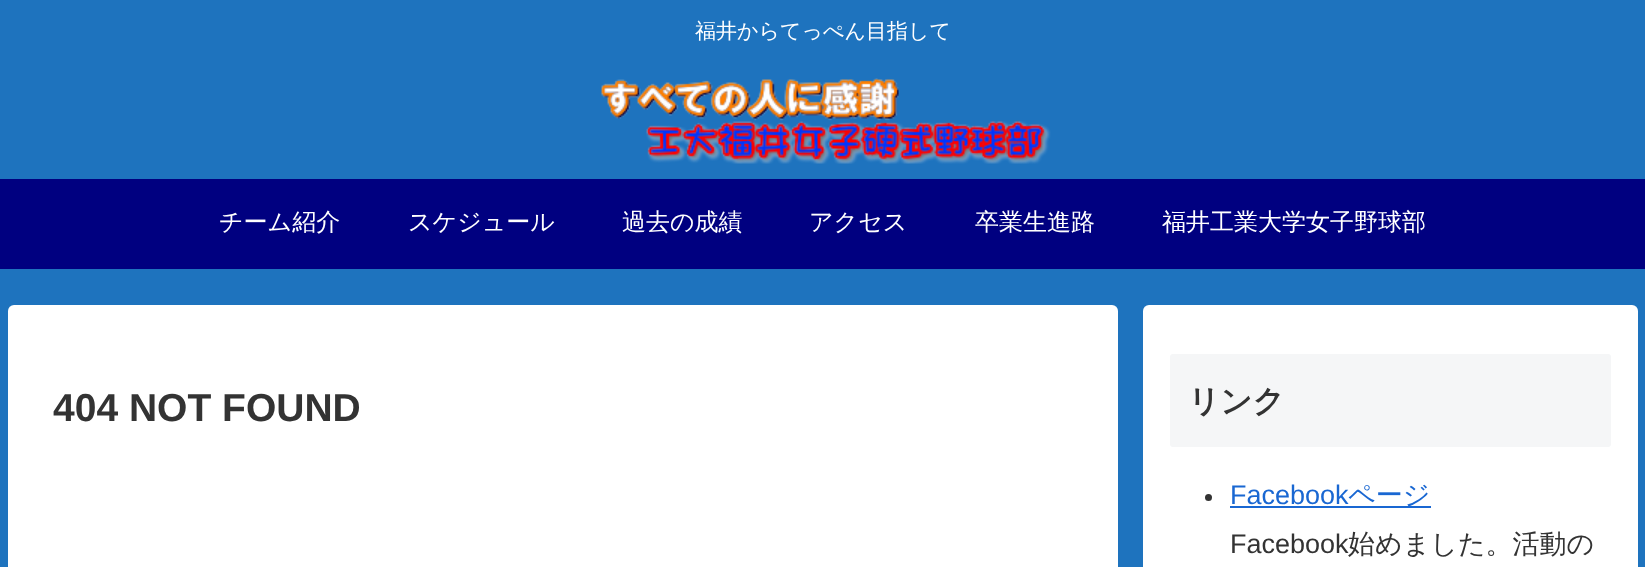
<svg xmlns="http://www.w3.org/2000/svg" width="1645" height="567">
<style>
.a{font:500 21px WenQuanYi Zen Hei;fill:#fff}
.b{font:500 24px WenQuanYi Zen Hei;fill:#fff}
.c{font:bold 39px Liberation Sans;fill:#333}
.d{font:bold 31.5px WenQuanYi Zen Hei;fill:#333}
.e{font:27px Liberation Sans;fill:#1967d2}
.f{font:500 27px WenQuanYi Zen Hei;fill:#1967d2}
.g{font:27px Liberation Sans;fill:#333}
.h{font:500 27px WenQuanYi Zen Hei;fill:#333}
</style>
<rect width="100%" height="100%" fill="#1e73be"/>
<image href="1.png" x="601" y="78" width="450" height="86"/>
<path fill="#000080" d="M0 179h1645v90H0z"/>
<rect fill="#fff" x="8" y="305" width="1110" height="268" rx="6"/>
<rect fill="#fff" x="1143" y="305" width="495" height="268" rx="6"/>
<rect fill="#f5f6f7" x="1170" y="354" width="441" height="93" rx="3"/>
<circle fill="#333" cx="1208.5" cy="497.5" r="3.5"/>
<path fill="#1967d2" d="M1230 506h201v2H1230z"/>
<text class="a" x="695" y="38">福井からてっぺん目指して</text>
<text class="b" x="219" y="230">チーム紹介</text>
<text class="b" x="408" y="230">スケジュール</text>
<text class="b" x="622" y="230">過去の成績</text>
<text class="b" x="809" y="230">アクセス</text>
<text class="b" x="975" y="230">卒業生進路</text>
<text class="b" x="1162" y="230">福井工業大学女子野球部</text>
<text class="c" x="53" y="421">404 NOT FOUND</text>
<text class="d" x="1188" y="412">リンク</text>
<text class="e" x="1230" y="504">Facebook</text>
<text class="f" x="1348" y="504">ページ</text>
<text class="g" x="1230" y="553">Facebook</text>
<text class="h" x="1348" y="553">始めました。活動の</text>
</svg>
